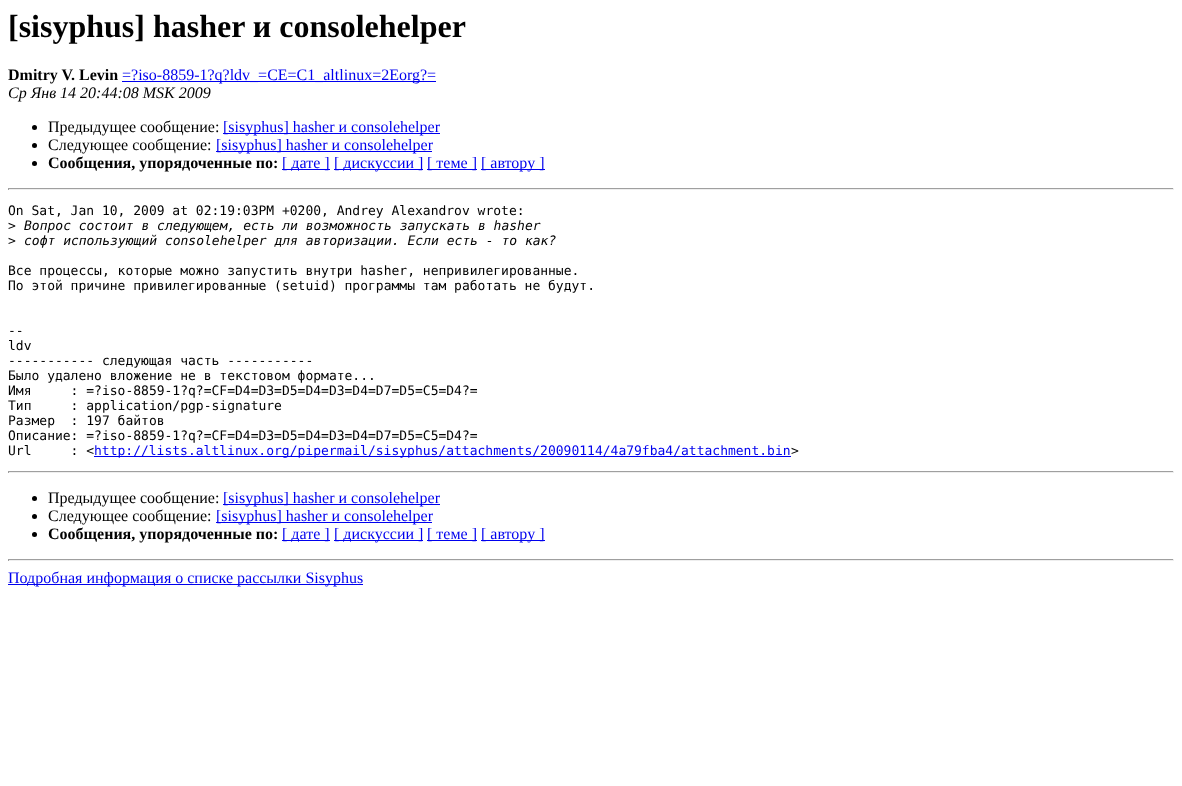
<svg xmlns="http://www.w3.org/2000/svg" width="1182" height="786">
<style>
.a{font:bold 32px Liberation Serif;fill:#000}
.b{font:bold 16px Liberation Serif;fill:#000}
.c{font:16px Liberation Serif;fill:#00e}
.d{font:italic 16px Liberation Serif;fill:#000}
.e{font:16px Liberation Serif;fill:#000}
.f{font:13px DejaVu Sans Mono;fill:#000}
.g{font:italic 13px DejaVu Sans Mono;fill:#000}
.h{font:13px DejaVu Sans Mono;fill:#00e}
</style>
<rect width="100%" height="100%" fill="#fff"/>
<path fill="#00e" d="M122 81h314v1H122z"/>
<circle fill="#000" cx="34.5" cy="127.5" r="2.5"/>
<path fill="#00e" d="M223 133h217v1H223z"/>
<circle fill="#000" cx="34.5" cy="145.5" r="2.5"/>
<path fill="#00e" d="M216 151h216v1H216z"/>
<circle fill="#000" cx="34.5" cy="163.5" r="2.5"/>
<path fill="#00e" d="M282 169h48v1H282z"/>
<path fill="#00e" d="M334 169h89v1H334z"/>
<path fill="#00e" d="M427 169h50v1H427z"/>
<path fill="#00e" d="M481 169h64v1H481z"/>
<path fill="#9f9f9f" d="M8 188h1166v1H8z"/>
<path fill="#eee" d="M1173 188h1v2H1173z"/>
<path fill="#eee" d="M8 189h1166v1H8z"/>
<path fill="#9f9f9f" d="M8 188h1v2H8z"/>
<path fill="#00e" d="M94 456h697v1H94z"/>
<path fill="#9f9f9f" d="M8 471h1166v1H8z"/>
<path fill="#eee" d="M1173 471h1v2H1173z"/>
<path fill="#eee" d="M8 472h1166v1H8z"/>
<path fill="#9f9f9f" d="M8 471h1v2H8z"/>
<circle fill="#000" cx="34.5" cy="498.5" r="2.5"/>
<path fill="#00e" d="M223 504h217v1H223z"/>
<circle fill="#000" cx="34.5" cy="516.5" r="2.5"/>
<path fill="#00e" d="M216 522h216v1H216z"/>
<circle fill="#000" cx="34.5" cy="534.5" r="2.5"/>
<path fill="#00e" d="M282 540h48v1H282z"/>
<path fill="#00e" d="M334 540h89v1H334z"/>
<path fill="#00e" d="M427 540h50v1H427z"/>
<path fill="#00e" d="M481 540h64v1H481z"/>
<path fill="#9f9f9f" d="M8 559h1166v1H8z"/>
<path fill="#eee" d="M1173 559h1v2H1173z"/>
<path fill="#eee" d="M8 560h1166v1H8z"/>
<path fill="#9f9f9f" d="M8 559h1v2H8z"/>
<path fill="#00e" d="M8 584h355v1H8z"/>
<text class="a" x="8" y="37">[sisyphus] hasher и consolehelper</text>
<text class="b" x="8" y="80">Dmitry V. Levin</text>
<text class="c" x="122" y="80">=?iso-8859-1?q?ldv_=CE=C1_altlinux=2Eorg?=</text>
<text class="d" x="8" y="98">Ср Янв 14 20:44:08 MSK 2009</text>
<text class="e" x="48" y="132">Предыдущее сообщение:</text>
<text class="c" x="223" y="132">[sisyphus] hasher и consolehelper</text>
<text class="e" x="48" y="150">Следующее сообщение:</text>
<text class="c" x="216" y="150">[sisyphus] hasher и consolehelper</text>
<text class="b" x="48" y="168">Сообщения, упорядоченные по:</text>
<text class="c" x="282" y="168">[ дате ]</text>
<text class="c" x="334" y="168">[ дискуссии ]</text>
<text class="c" x="427" y="168">[ теме ]</text>
<text class="c" x="481" y="168">[ автору ]</text>
<text class="f" x="8" y="215">On Sat, Jan 10, 2009 at 02:19:03PM +0200, Andrey Alexandrov wrote:</text>
<text class="f" x="8" y="230">&gt;</text>
<text class="g" x="24" y="230">Вопрос состоит в следующем, есть ли возможность запускать в hasher</text>
<text class="f" x="8" y="245">&gt;</text>
<text class="g" x="24" y="245">софт использующий consolehelper для авторизации. Если есть - то как?</text>
<text class="f" x="8" y="275">Все процессы, которые можно запустить внутри hasher, непривилегированные.</text>
<text class="f" x="8" y="290">По этой причине привилегированные (setuid) программы там работать не будут.</text>
<text class="f" x="8" y="335">--</text>
<text class="f" x="8" y="350">ldv</text>
<text class="f" x="8" y="365">----------- следующая часть -----------</text>
<text class="f" x="8" y="380">Было удалено вложение не в текстовом формате...</text>
<text class="f" xml:space="preserve" x="8" y="395">Имя     : =?iso-8859-1?q?=CF=D4=D3=D5=D4=D3=D4=D7=D5=C5=D4?=</text>
<text class="f" xml:space="preserve" x="8" y="410">Тип     : application/pgp-signature</text>
<text class="f" xml:space="preserve" x="8" y="425">Размер  : 197 байтов</text>
<text class="f" x="8" y="440">Описание: =?iso-8859-1?q?=CF=D4=D3=D5=D4=D3=D4=D7=D5=C5=D4?=</text>
<text class="f" xml:space="preserve" x="8" y="455">Url     : &lt;</text>
<text class="h" x="94" y="455">http://lists.altlinux.org/pipermail/sisyphus/attachments/20090114/4a79fba4/attachment.bin</text>
<text class="f" x="791" y="455">&gt;</text>
<text class="e" x="48" y="503">Предыдущее сообщение:</text>
<text class="c" x="223" y="503">[sisyphus] hasher и consolehelper</text>
<text class="e" x="48" y="521">Следующее сообщение:</text>
<text class="c" x="216" y="521">[sisyphus] hasher и consolehelper</text>
<text class="b" x="48" y="539">Сообщения, упорядоченные по:</text>
<text class="c" x="282" y="539">[ дате ]</text>
<text class="c" x="334" y="539">[ дискуссии ]</text>
<text class="c" x="427" y="539">[ теме ]</text>
<text class="c" x="481" y="539">[ автору ]</text>
<text class="c" x="8" y="583">Подробная информация о списке рассылки Sisyphus</text>
</svg>
